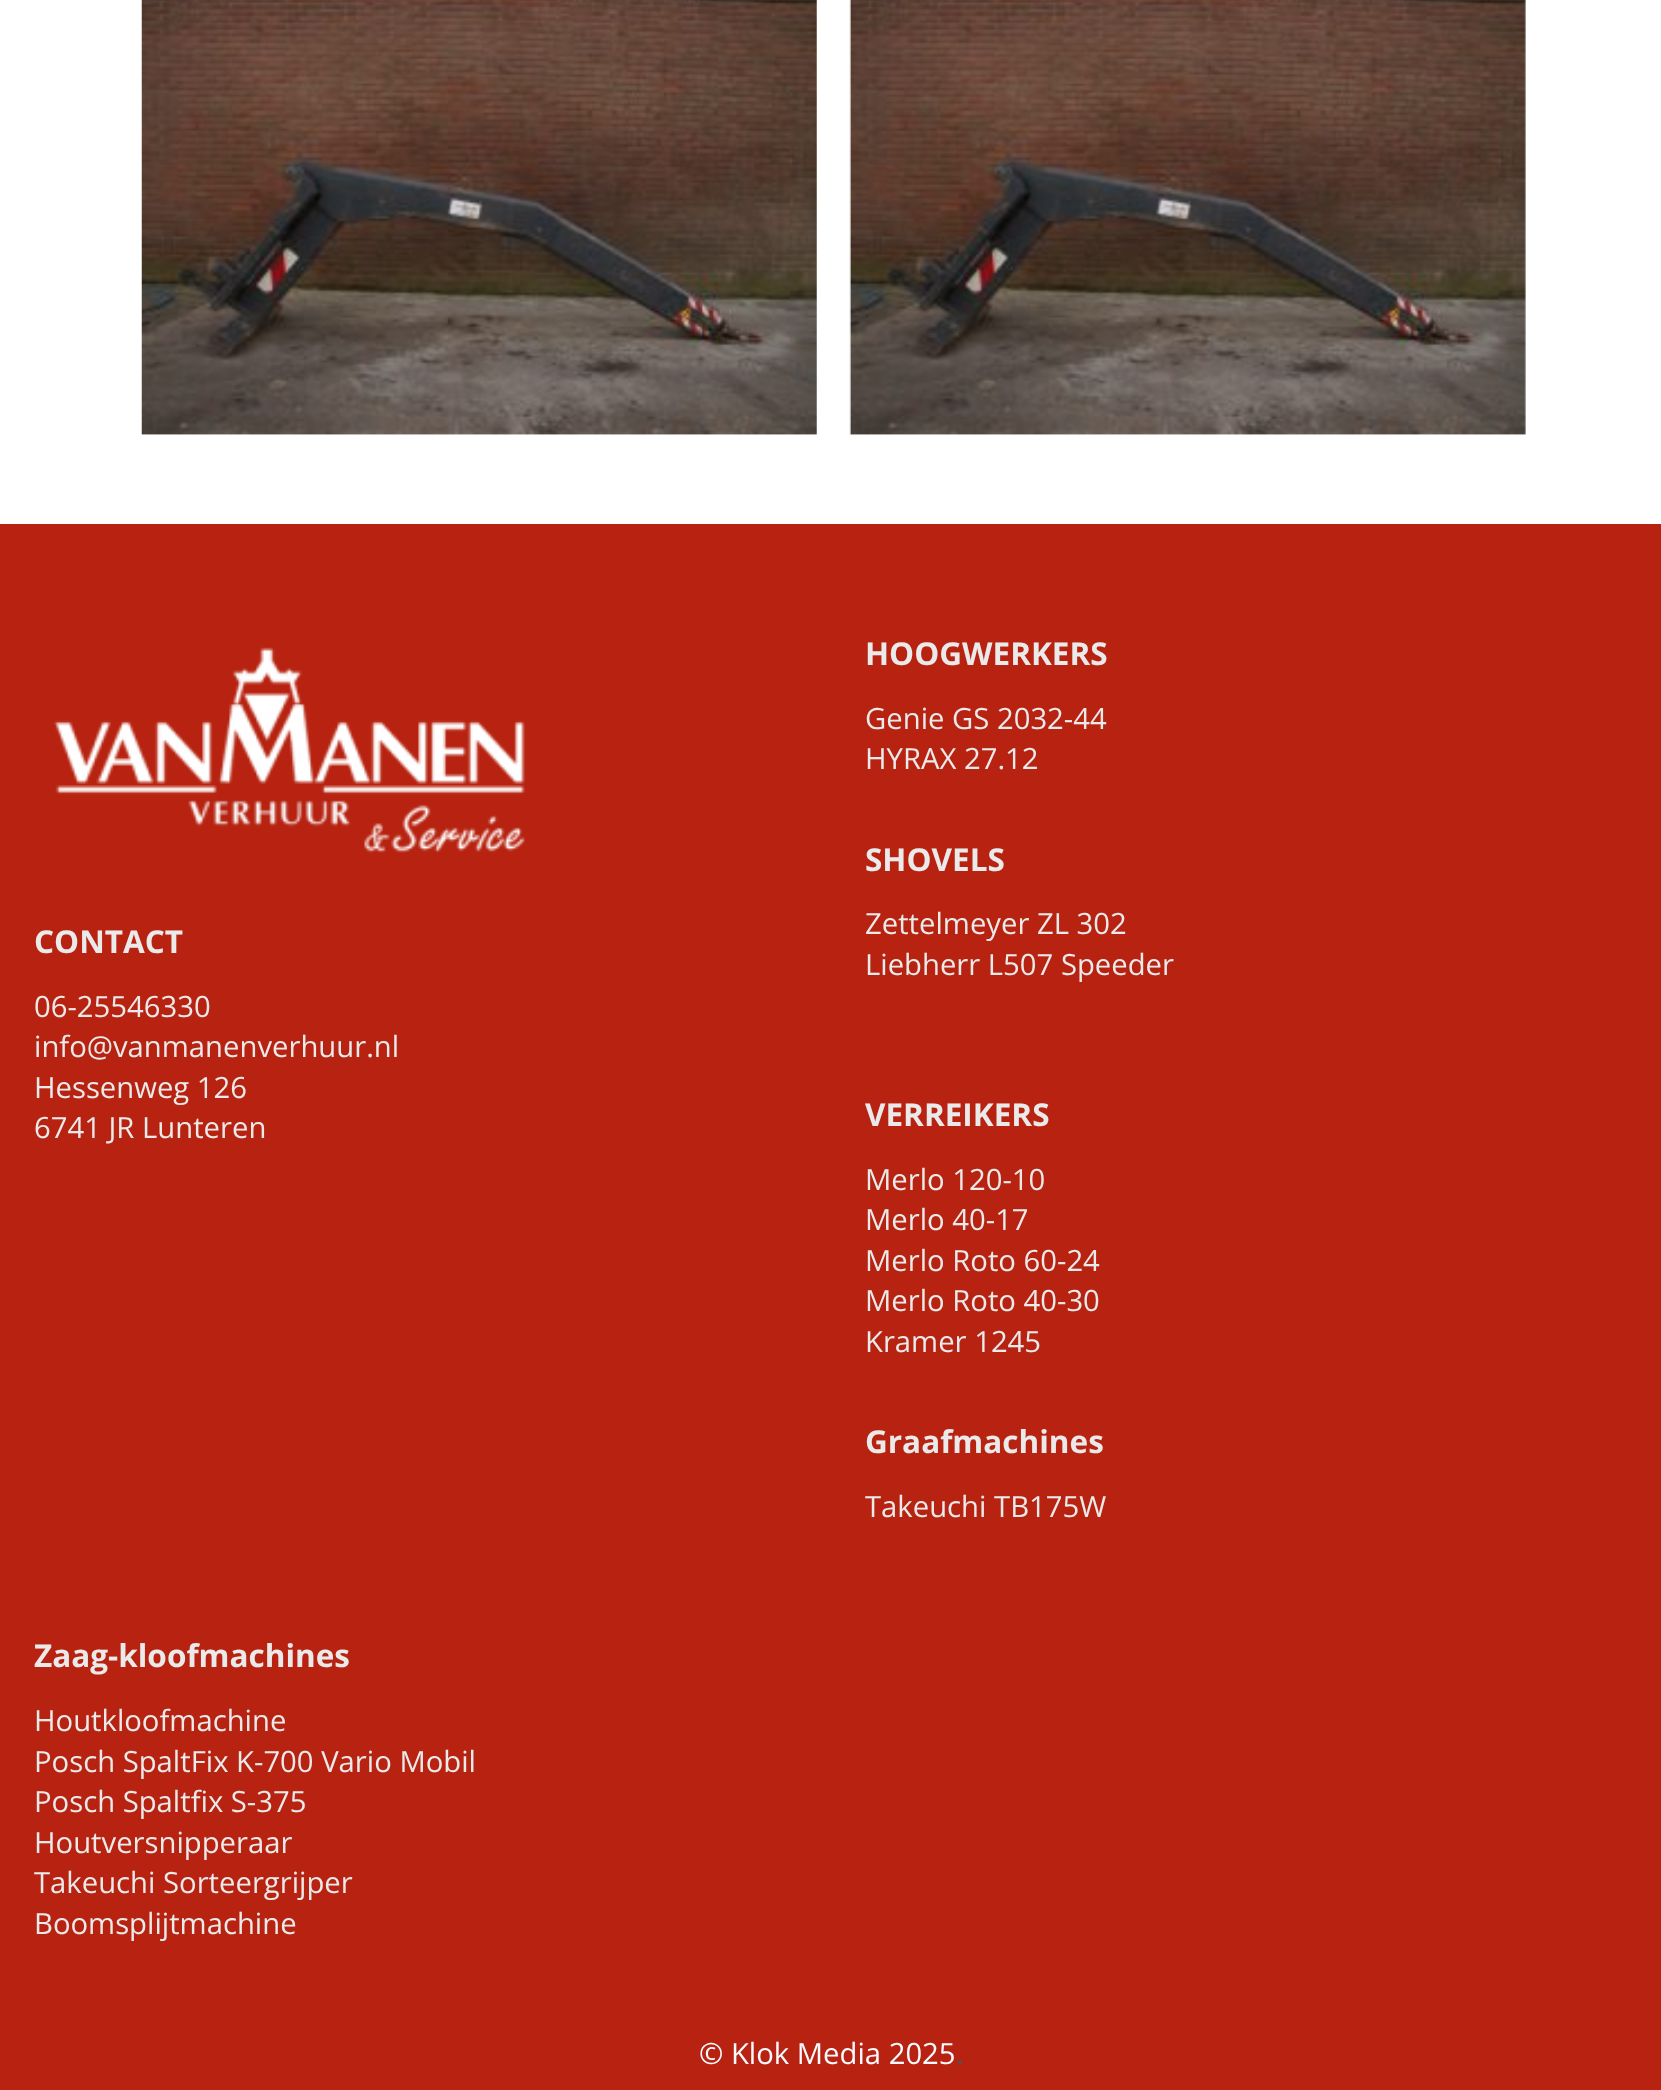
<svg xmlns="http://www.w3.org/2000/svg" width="1661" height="2090">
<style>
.a{font:bold 31.5px Open Sans;fill:#eaeaea}
.b{font:29.25px Open Sans;fill:#eaeaea}
.c{font:29.25px Open Sans;fill:#f7faff}
.d{font:29.25px Open Sans;fill:#49555e}
</style>
<rect width="100%" height="100%" fill="#fff"/>
<image href="1.png" x="141" y="0" width="676" height="435"/>
<image href="2.png" x="849" y="0" width="677" height="435"/>
<path fill="#b72310" d="M0 524h1661v1566H0z"/>
<image href="3.png" x="53" y="647" width="472" height="206"/>
<text class="a" x="865" y="665">HOOGWERKERS</text>
<text class="b" x="865" y="729">Genie GS 2032-44</text>
<text class="b" x="865" y="769">HYRAX 27.12</text>
<text class="a" x="865" y="871">SHOVELS</text>
<text class="b" x="865" y="934">Zettelmeyer ZL 302</text>
<text class="b" x="865" y="975">Liebherr L507 Speeder</text>
<text class="a" x="34" y="953">CONTACT</text>
<text class="b" x="34" y="1017">06-25546330</text>
<text class="b" x="34" y="1057">info@vanmanenverhuur.nl</text>
<text class="b" x="34" y="1098">Hessenweg 126</text>
<text class="b" x="34" y="1138">6741 JR Lunteren</text>
<text class="a" x="865" y="1126">VERREIKERS</text>
<text class="b" x="865" y="1190">Merlo 120-10</text>
<text class="b" x="865" y="1230">Merlo 40-17</text>
<text class="b" x="865" y="1271">Merlo Roto 60-24</text>
<text class="b" x="865" y="1311">Merlo Roto 40-30</text>
<text class="b" x="865" y="1352">Kramer 1245</text>
<text class="a" x="865" y="1453">Graafmachines</text>
<text class="b" x="865" y="1517">Takeuchi TB175W</text>
<text class="a" x="34" y="1667">Zaag-kloofmachines</text>
<text class="b" x="34" y="1731">Houtkloofmachine</text>
<text class="b" x="34" y="1772">Posch SpaltFix K-700 Vario Mobil</text>
<text class="b" x="34" y="1812">Posch Spaltfix S-375</text>
<text class="b" x="34" y="1853">Houtversnipperaar</text>
<text class="b" x="34" y="1893">Takeuchi Sorteergrijper</text>
<text class="b" x="34" y="1934">Boomsplijtmachine</text>
<text class="c" x="699" y="2064">© Klok Media 2025</text>
<text class="d" x="956" y="2064">.</text>
</svg>
